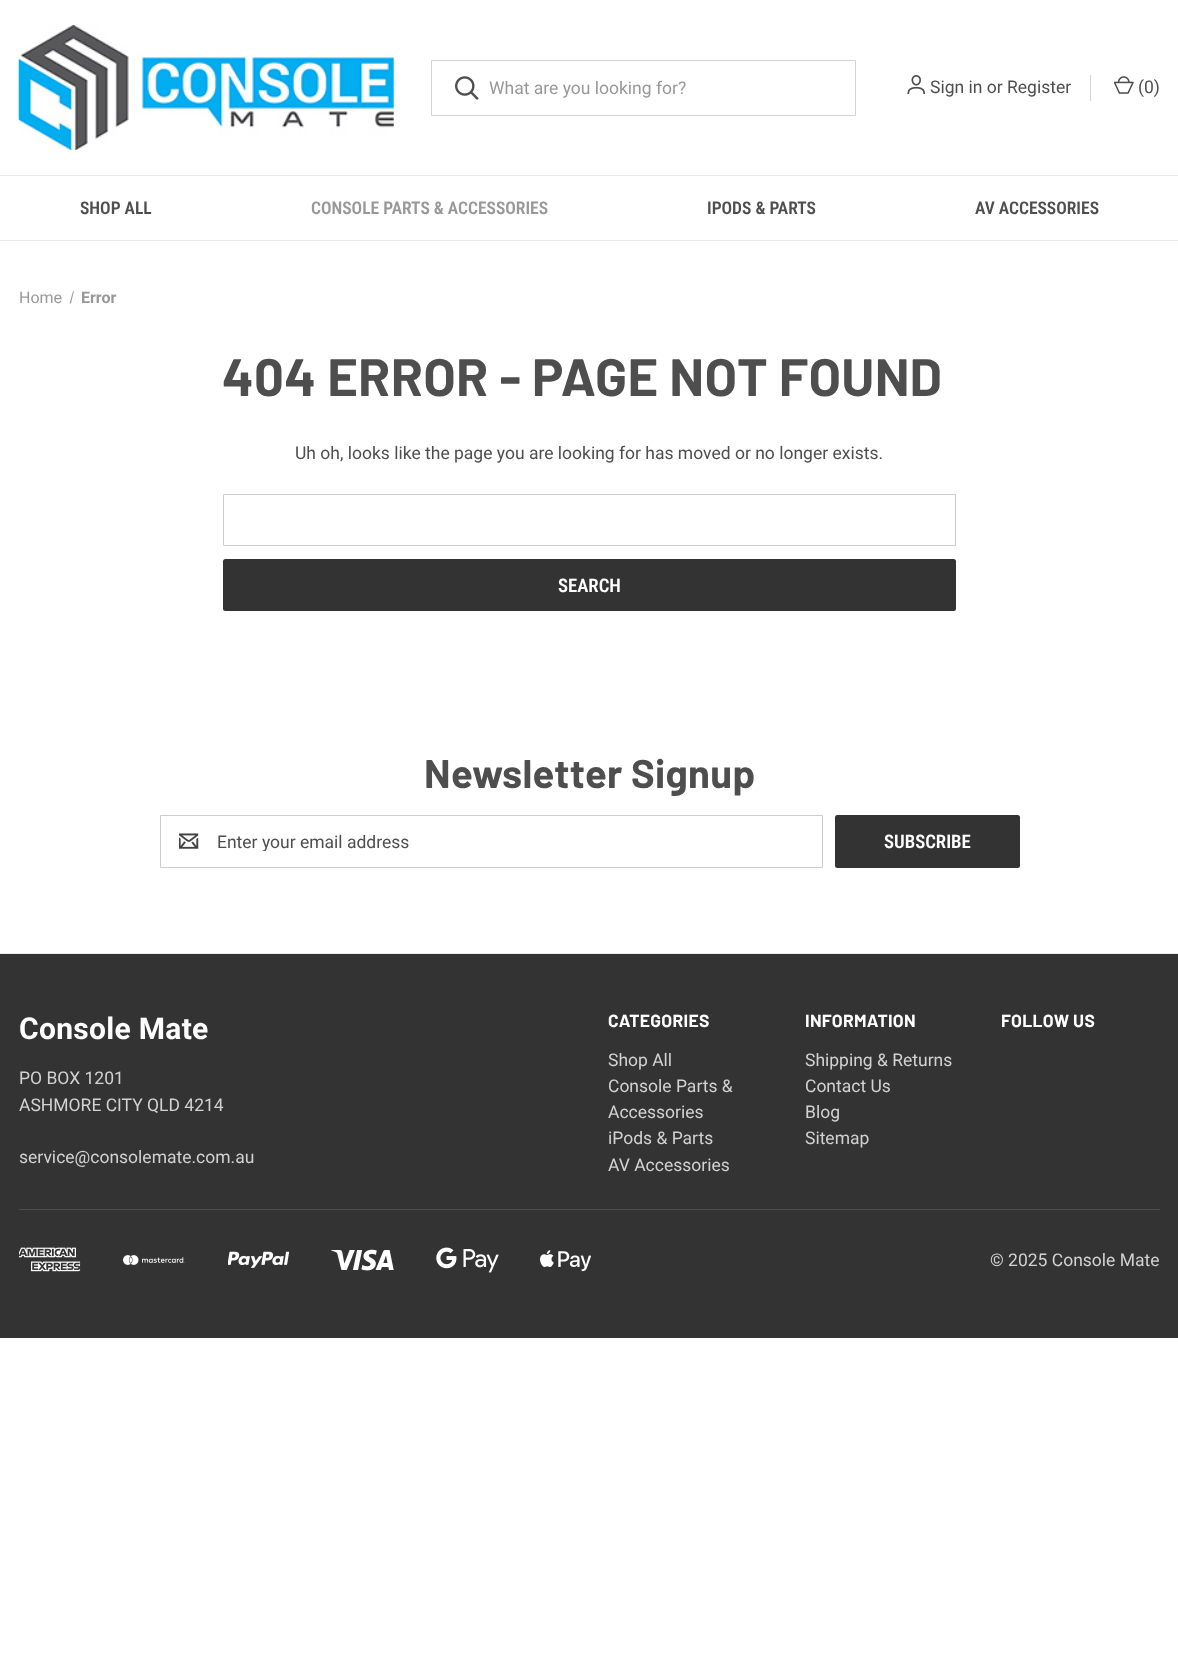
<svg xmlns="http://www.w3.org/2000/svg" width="1178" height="1677">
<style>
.a{font:17.5px Roboto;fill:#989898}
.b{font:17.5px Roboto;fill:#4e4e4e}
.c{font:600 17.5px Roboto Condensed;fill:#4e4e4e}
.d{font:600 17.5px Roboto Condensed;fill:#989898}
.e{font:16px Roboto;fill:#989898}
.f{font:bold 16px Roboto;fill:#989898}
.g{font:bold 52.5px Barlow;letter-spacing:0.3px;fill:#4e4e4e}
.h{font:600 18.75px Roboto Condensed;fill:#fff}
.i{font:bold 40px Barlow;letter-spacing:0.3px;fill:#4e4e4e}
.j{font:bold 30px Roboto;letter-spacing:0.3px;fill:#fff}
.k{font:17.5px Roboto;fill:#d2d2d2}
.l{font:bold 17.5px Barlow;letter-spacing:0.3px;fill:#fff}
</style>
<defs>
<clipPath id="clip1"><path d="M218 831h586v20H218z"/></clipPath>
</defs>
<rect width="100%" height="100%" fill="#fff"/>
<image href="1.png" x="18" y="25" width="376" height="125"/>
<path fill="none" stroke="#d2d2d2" d="M431.5 60.5h424v55H431.5z"/>
<image href="2.png" x="455" y="76" width="24" height="24"/>
<image href="3.png" x="907" y="75" width="19" height="19"/>
<path fill="#d2d2d2" d="M1090 75h1v26H1090z"/>
<image href="4.png" x="1114" y="76" width="20" height="18"/>
<path fill="#ebebeb" d="M0 175h1178v1H0z"/>
<path fill="#ebebeb" d="M0 240h1178v1H0z"/>
<path fill="#a3a3a3" d="M73 291h1l-3 12.5h-1.5z"/>
<path fill="none" stroke="#ccc" d="M223.5 494.5h732v51H223.5z"/>
<rect fill="#333" x="223" y="559" width="733" height="52" rx="2.5"/>
<path fill="none" stroke="#ccc" d="M160.5 815.5h662v52H160.5z"/>
<image href="5.png" x="179" y="833" width="20" height="16"/>
<rect fill="#333" x="835" y="815" width="185" height="53" rx="2.5"/>
<path fill="#333" d="M0 954h1178v384H0z"/>
<path fill="#ebebeb" d="M0 953h1178v1H0z"/>
<path fill="#4e4e4e" d="M19 1209h1141v1H19z"/>
<image href="6.png" x="19" y="1247" width="62" height="25"/>
<image href="7.png" x="123" y="1255" width="62" height="10"/>
<image href="8.png" x="228" y="1251" width="62" height="17"/>
<image href="9.png" x="331" y="1249" width="63" height="22"/>
<image href="10.png" x="436" y="1247" width="63" height="26"/>
<image href="11.png" x="540" y="1250" width="51" height="22"/>
<text class="a" x="489" y="94">What are you looking for?</text>
<text class="b" x="930" y="93">Sign in or Register</text>
<text class="b" x="1138" y="93">(0)</text>
<text class="c" x="80" y="214">SHOP ALL</text>
<text class="d" x="311" y="214">CONSOLE PARTS &amp; ACCESSORIES</text>
<text class="c" x="707" y="214">IPODS &amp; PARTS</text>
<text class="c" x="975" y="214">AV ACCESSORIES</text>
<text class="e" x="19" y="303">Home</text>
<text class="f" x="81" y="303">Error</text>
<text class="g" x="222" y="396">404 ERROR - PAGE NOT FOUND</text>
<text class="b" x="295" y="459">Uh oh, looks like the page you are looking for has moved or no longer exists.</text>
<text class="h" x="558" y="592">SEARCH</text>
<text class="i" x="424" y="788">Newsletter Signup</text>
<g clip-path="url(#clip1)">
<text class="b" x="217" y="848">Enter your email address</text>
</g>
<text class="h" x="884" y="848">SUBSCRIBE</text>
<text class="j" x="19" y="1039">Console Mate</text>
<text class="k" x="19" y="1084">PO BOX 1201</text>
<text class="k" x="19" y="1111">ASHMORE CITY QLD 4214</text>
<text class="k" x="19" y="1163">service@consolemate.com.au</text>
<text class="l" x="608" y="1027">CATEGORIES</text>
<text class="k" x="608" y="1066">Shop All</text>
<text class="k" x="608" y="1092">Console Parts &amp;</text>
<text class="k" x="608" y="1118">Accessories</text>
<text class="k" x="608" y="1144">iPods &amp; Parts</text>
<text class="k" x="608" y="1171">AV Accessories</text>
<text class="l" x="805" y="1027">INFORMATION</text>
<text class="k" x="805" y="1066">Shipping &amp; Returns</text>
<text class="k" x="805" y="1092">Contact Us</text>
<text class="k" x="805" y="1118">Blog</text>
<text class="k" x="805" y="1144">Sitemap</text>
<text class="l" x="1001" y="1027">FOLLOW US</text>
<text class="k" x="990" y="1266">© 2025 Console Mate</text>
</svg>
